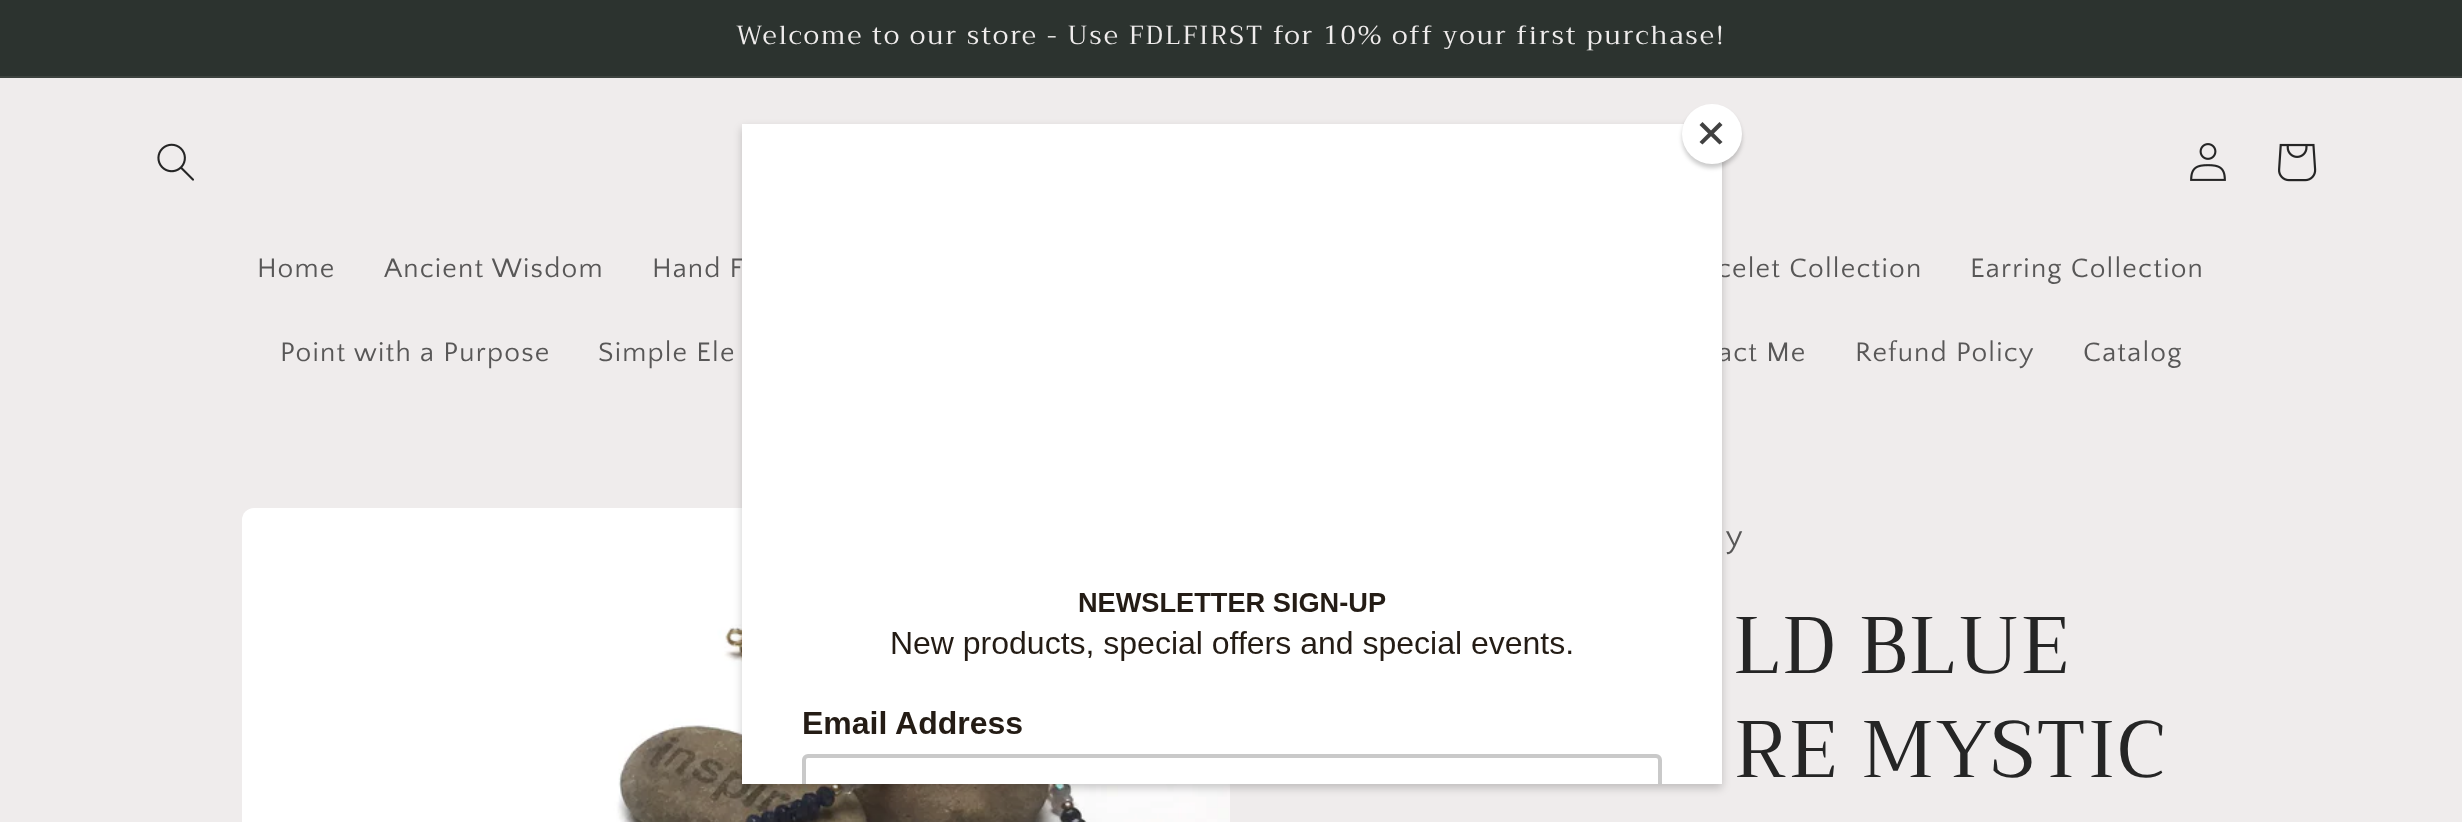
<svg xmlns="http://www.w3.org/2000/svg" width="2462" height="822">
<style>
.a{font:26px Trirong;letter-spacing:2px;fill:#efecec}
.b{font:28px Quattrocento Sans;letter-spacing:1.2px;fill:#585757}
.c{font:32px Quattrocento Sans;letter-spacing:1.2px;fill:#585757}
.d{font:80px Trirong;letter-spacing:1.2px;fill:#252525}
</style>
<rect width="100%" height="100%" fill="#efecec"/>
<path fill="#2c332f" d="M0 0h2462v76H0z"/>
<path fill="#3c423e" d="M0 76h2462v2H0z"/>
<image href="5.png" x="242" y="508" width="988" height="314"/>
<path fill="#00000033" filter="blur(4px)" d="M742 128h980v660H742z"/>
<image href="2.png" x="157" y="143" width="37" height="38"/>
<image href="3.png" x="2190" y="143" width="36" height="38"/>
<image href="4.png" x="2278" y="143" width="39" height="39"/>
<text class="a" x="736" y="44">Welcome to our store - Use FDLFIRST for 10% off your first purchase!</text>
<text class="b" x="257" y="277">Home</text>
<text class="b" x="384" y="277">Ancient Wisdom</text>
<text class="b" x="652" y="277">Hand F</text>
<text class="b" x="1717" y="277">celet Collection</text>
<text class="b" x="1970" y="277">Earring Collection</text>
<text class="b" x="280" y="361">Point with a Purpose</text>
<text class="b" x="598" y="361">Simple Ele</text>
<text class="b" x="1718" y="361">act Me</text>
<image href="1.png" x="742" y="124" width="980" height="660"/>
<rect fill="#00000033" filter="blur(2px)" x="1682" y="108" width="60" height="60" rx="30"/>
<circle fill="#fff" cx="1712" cy="134" r="30"/>
<path fill="#414141" d="M1719.5 122l3 3l-20 19.5l-3-2.5z"/>
<path fill="#414141" d="M1699.5 125l3-3l20 20l-3 2.5z"/>
<text class="b" x="1855" y="361">Refund Policy</text>
<text class="b" x="2083" y="361">Catalog</text>
<text class="c" x="1726" y="546">y</text>
<text class="d" x="1733" y="673">LD BLUE</text>
<text class="d" x="1734" y="777">RE MYSTIC</text>
</svg>
